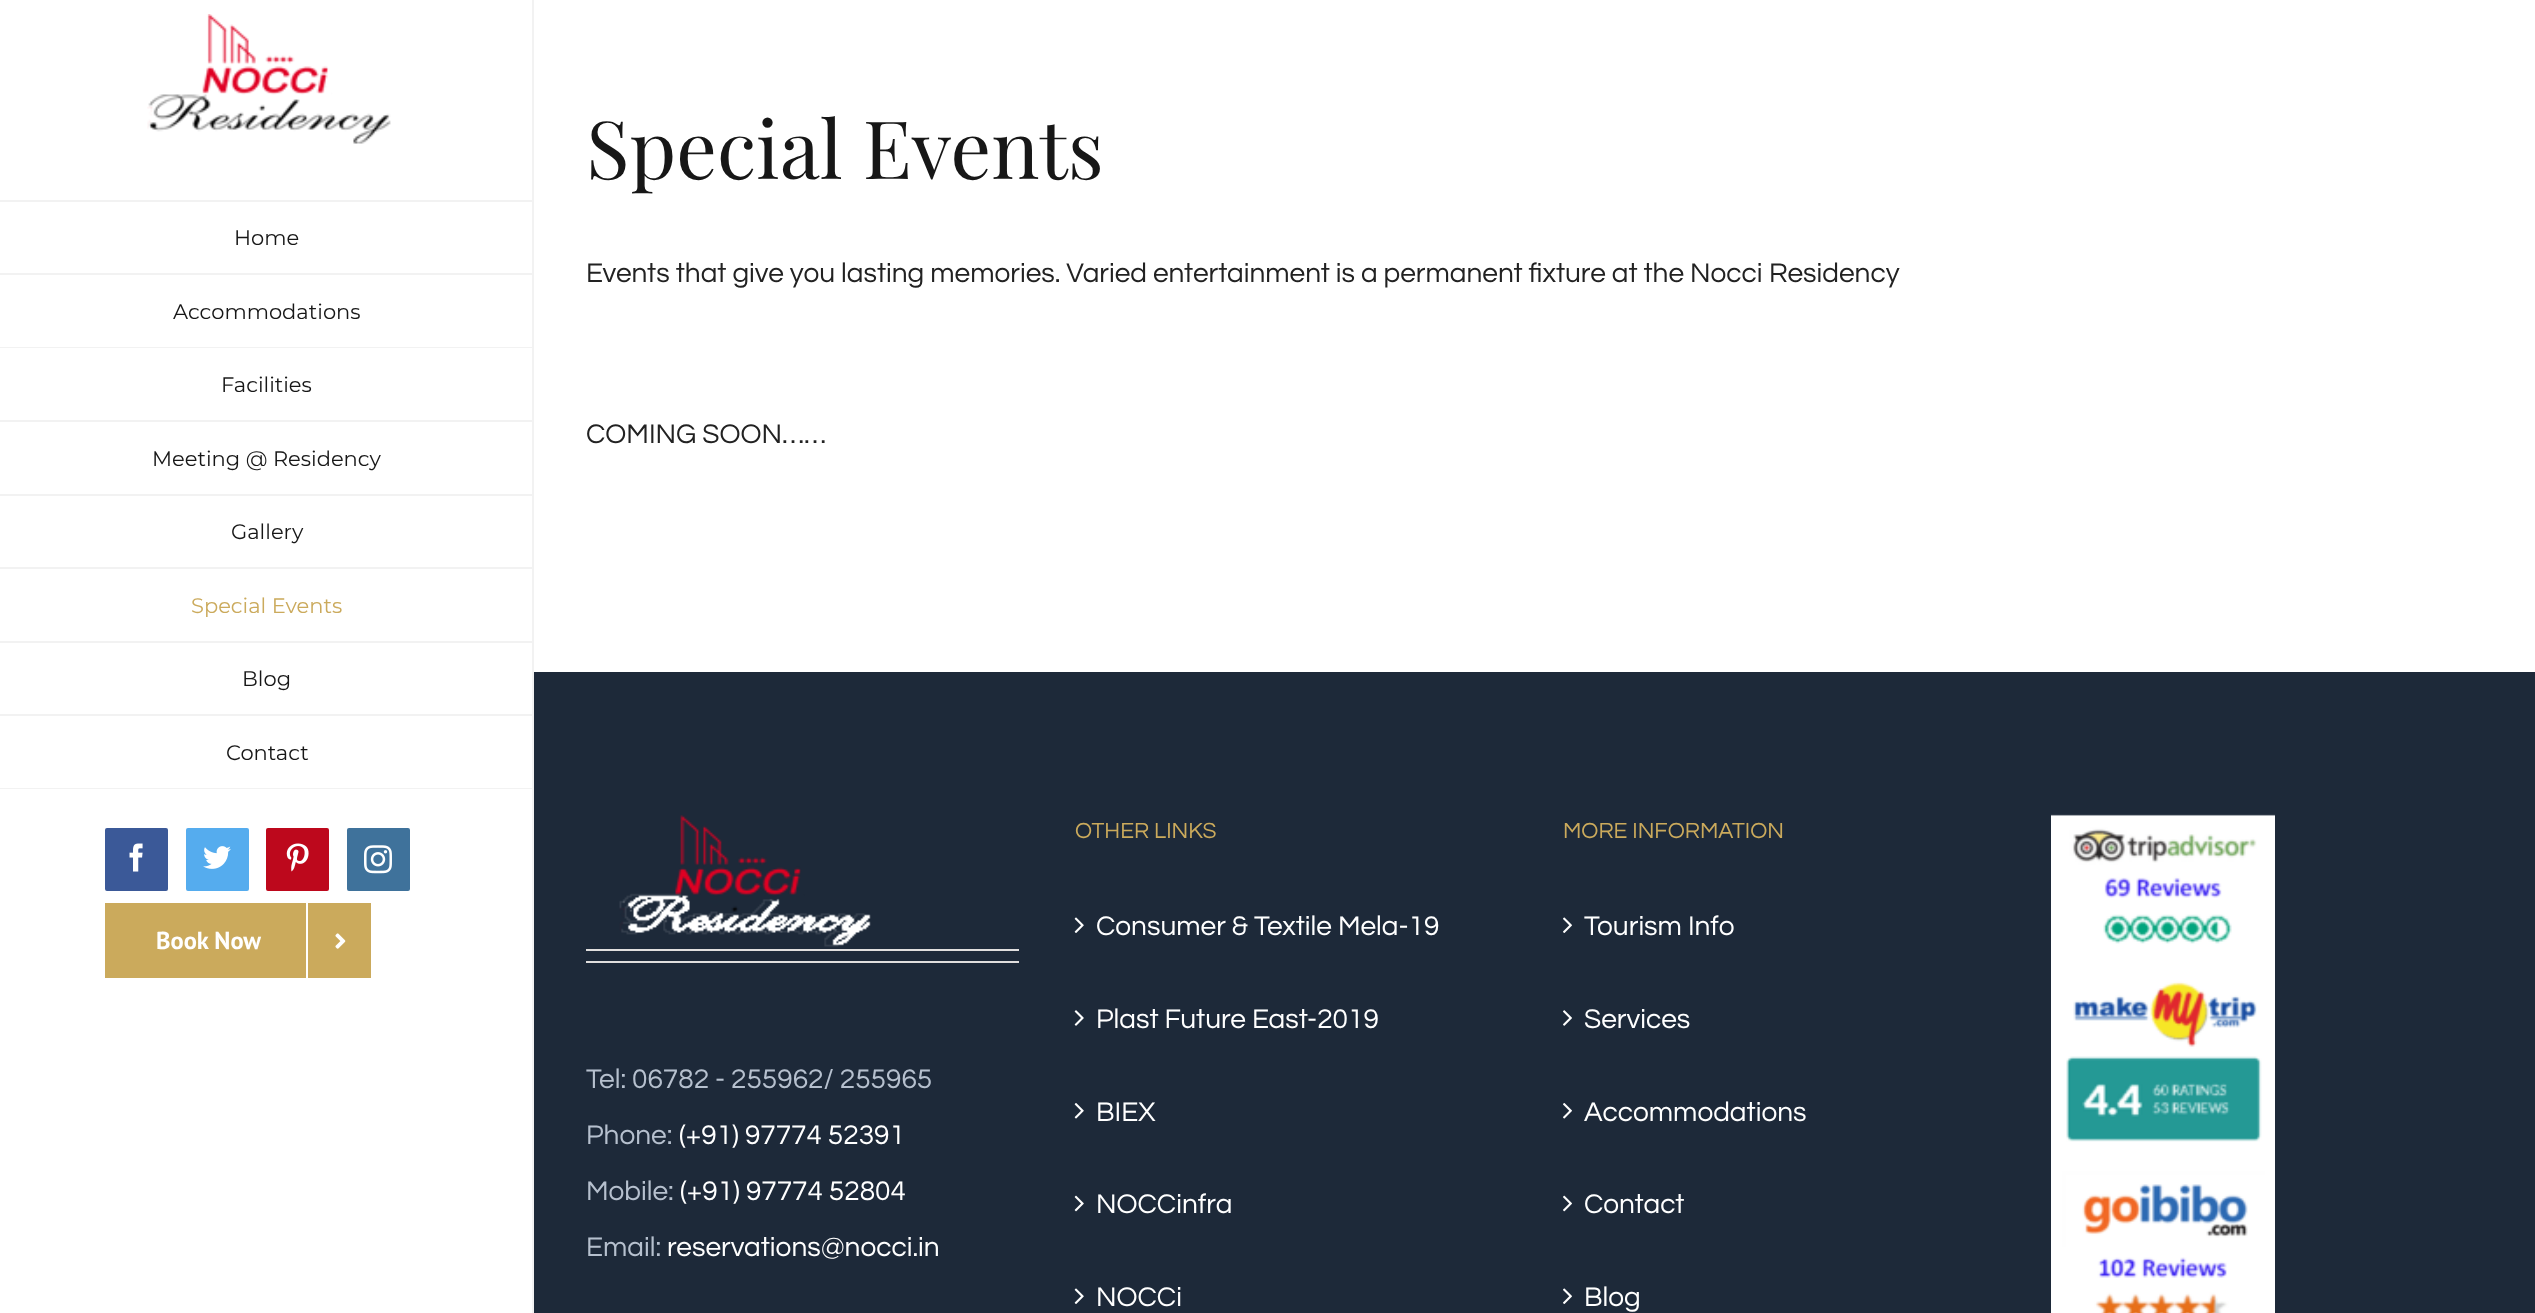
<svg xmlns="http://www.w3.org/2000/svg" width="2535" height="1313">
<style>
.a{font:100 21px Montserrat;fill:#171717}
.b{font:100 21px Montserrat;fill:#cbaa5c}
.c{font:bold 24.5px PT Sans;fill:#fff}
.d{font:80.5px Playfair Display;fill:#171717}
.e{font:28px Questrial;fill:#222}
.f{font:28px Questrial;fill:#b6c0ce}
.g{font:28px Questrial;fill:#fff}
.h{font:22.75px Questrial;fill:#cbaa5c}
</style>
<rect width="100%" height="100%" fill="#fff"/>
<image href="1.png" x="147" y="14" width="244" height="130"/>
<path fill="#f2f2f2" d="M532 0h2v1313H532z"/>
<path fill="#f2f2f2" d="M0 200h534v2H0z"/>
<path fill="#f2f2f2" d="M0 273h534v2H0z"/>
<path fill="#f2f2f2" d="M0 347h534v1H0z"/>
<path fill="#f2f2f2" d="M0 420h534v2H0z"/>
<path fill="#f2f2f2" d="M0 494h534v2H0z"/>
<path fill="#f2f2f2" d="M0 567h534v2H0z"/>
<path fill="#f2f2f2" d="M0 641h534v2H0z"/>
<path fill="#f2f2f2" d="M0 714h534v2H0z"/>
<path fill="#f2f2f2" d="M0 788h534v1H0z"/>
<rect fill="#3b5998" stroke="#3b5998" stroke-width="2" x="106" y="829" width="61" height="61" rx="1"/>
<image href="2.png" x="129" y="843" width="14" height="29"/>
<rect fill="#55acee" stroke="#55acee" stroke-width="2" x="187" y="829" width="61" height="61" rx="1"/>
<image href="3.png" x="203" y="846" width="28" height="23"/>
<rect fill="#bd081c" stroke="#bd081c" stroke-width="2" x="267" y="829" width="61" height="61" rx="1"/>
<image href="4.png" x="286" y="843" width="23" height="29"/>
<rect fill="#3f729b" stroke="#3f729b" stroke-width="2" x="348" y="829" width="61" height="61" rx="1"/>
<image href="5.png" x="364" y="845" width="28" height="29"/>
<path fill="#cbaa5c" d="M105 903h266v75H105z"/>
<path fill="#fff" d="M306 903h2v75H306z"/>
<image href="6.png" x="335" y="933" width="11" height="16"/>
<path fill="#1d2939" d="M534 672h2001v641H534z"/>
<image href="7.png" x="619" y="815" width="252" height="132"/>
<path fill="#e0dede" d="M586 949h433v2H586z"/>
<path fill="#e0dede" d="M586 961h433v2H586z"/>
<image href="8.png" x="1074" y="917" width="10" height="16"/>
<image href="9.png" x="1074" y="1010" width="10" height="16"/>
<image href="10.png" x="1074" y="1103" width="10" height="16"/>
<image href="11.png" x="1074" y="1195" width="10" height="17"/>
<image href="8.png" x="1074" y="1288" width="10" height="16"/>
<image href="12.png" x="1563" y="917" width="9" height="16"/>
<image href="13.png" x="1563" y="1010" width="9" height="16"/>
<image href="14.png" x="1563" y="1103" width="9" height="16"/>
<image href="15.png" x="1563" y="1195" width="9" height="17"/>
<image href="12.png" x="1563" y="1288" width="9" height="16"/>
<image href="16.png" x="2051" y="814" width="224" height="499"/>
<text class="a" x="234" y="245">Home</text>
<text class="a" x="173" y="319">Accommodations</text>
<text class="a" x="221" y="392">Facilities</text>
<text class="a" x="152" y="466">Meeting @ Residency</text>
<text class="a" x="231" y="539">Gallery</text>
<text class="b" x="191" y="613">Special Events</text>
<text class="a" x="242" y="686">Blog</text>
<text class="a" x="226" y="760">Contact</text>
<text class="c" x="156" y="949">Book Now</text>
<text class="d" x="586" y="179">Special Events</text>
<text class="e" x="586" y="282">Events that give you lasting memories. Varied entertainment is a permanent fixture at the Nocci Residency</text>
<text class="e" x="586" y="443">COMING SOON……</text>
<text class="f" x="586" y="1088">Tel: 06782 - 255962/ 255965</text>
<text class="f" x="586" y="1144">Phone:</text>
<text class="g" x="679" y="1144">(+91) 97774 52391</text>
<text class="f" x="586" y="1200">Mobile:</text>
<text class="g" x="680" y="1200">(+91) 97774 52804</text>
<text class="f" x="586" y="1256">Email:</text>
<text class="g" x="667" y="1256">reservations@nocci.in</text>
<text class="h" x="1075" y="838">OTHER LINKS</text>
<text class="g" x="1096" y="935">Consumer &amp; Textile Mela-19</text>
<text class="g" x="1096" y="1028">Plast Future East-2019</text>
<text class="g" x="1096" y="1121">BIEX</text>
<text class="g" x="1096" y="1213">NOCCinfra</text>
<text class="g" x="1096" y="1306">NOCCi</text>
<text class="h" x="1563" y="838">MORE INFORMATION</text>
<text class="g" x="1584" y="935">Tourism Info</text>
<text class="g" x="1584" y="1028">Services</text>
<text class="g" x="1584" y="1121">Accommodations</text>
<text class="g" x="1584" y="1213">Contact</text>
<text class="g" x="1584" y="1306">Blog</text>
</svg>
